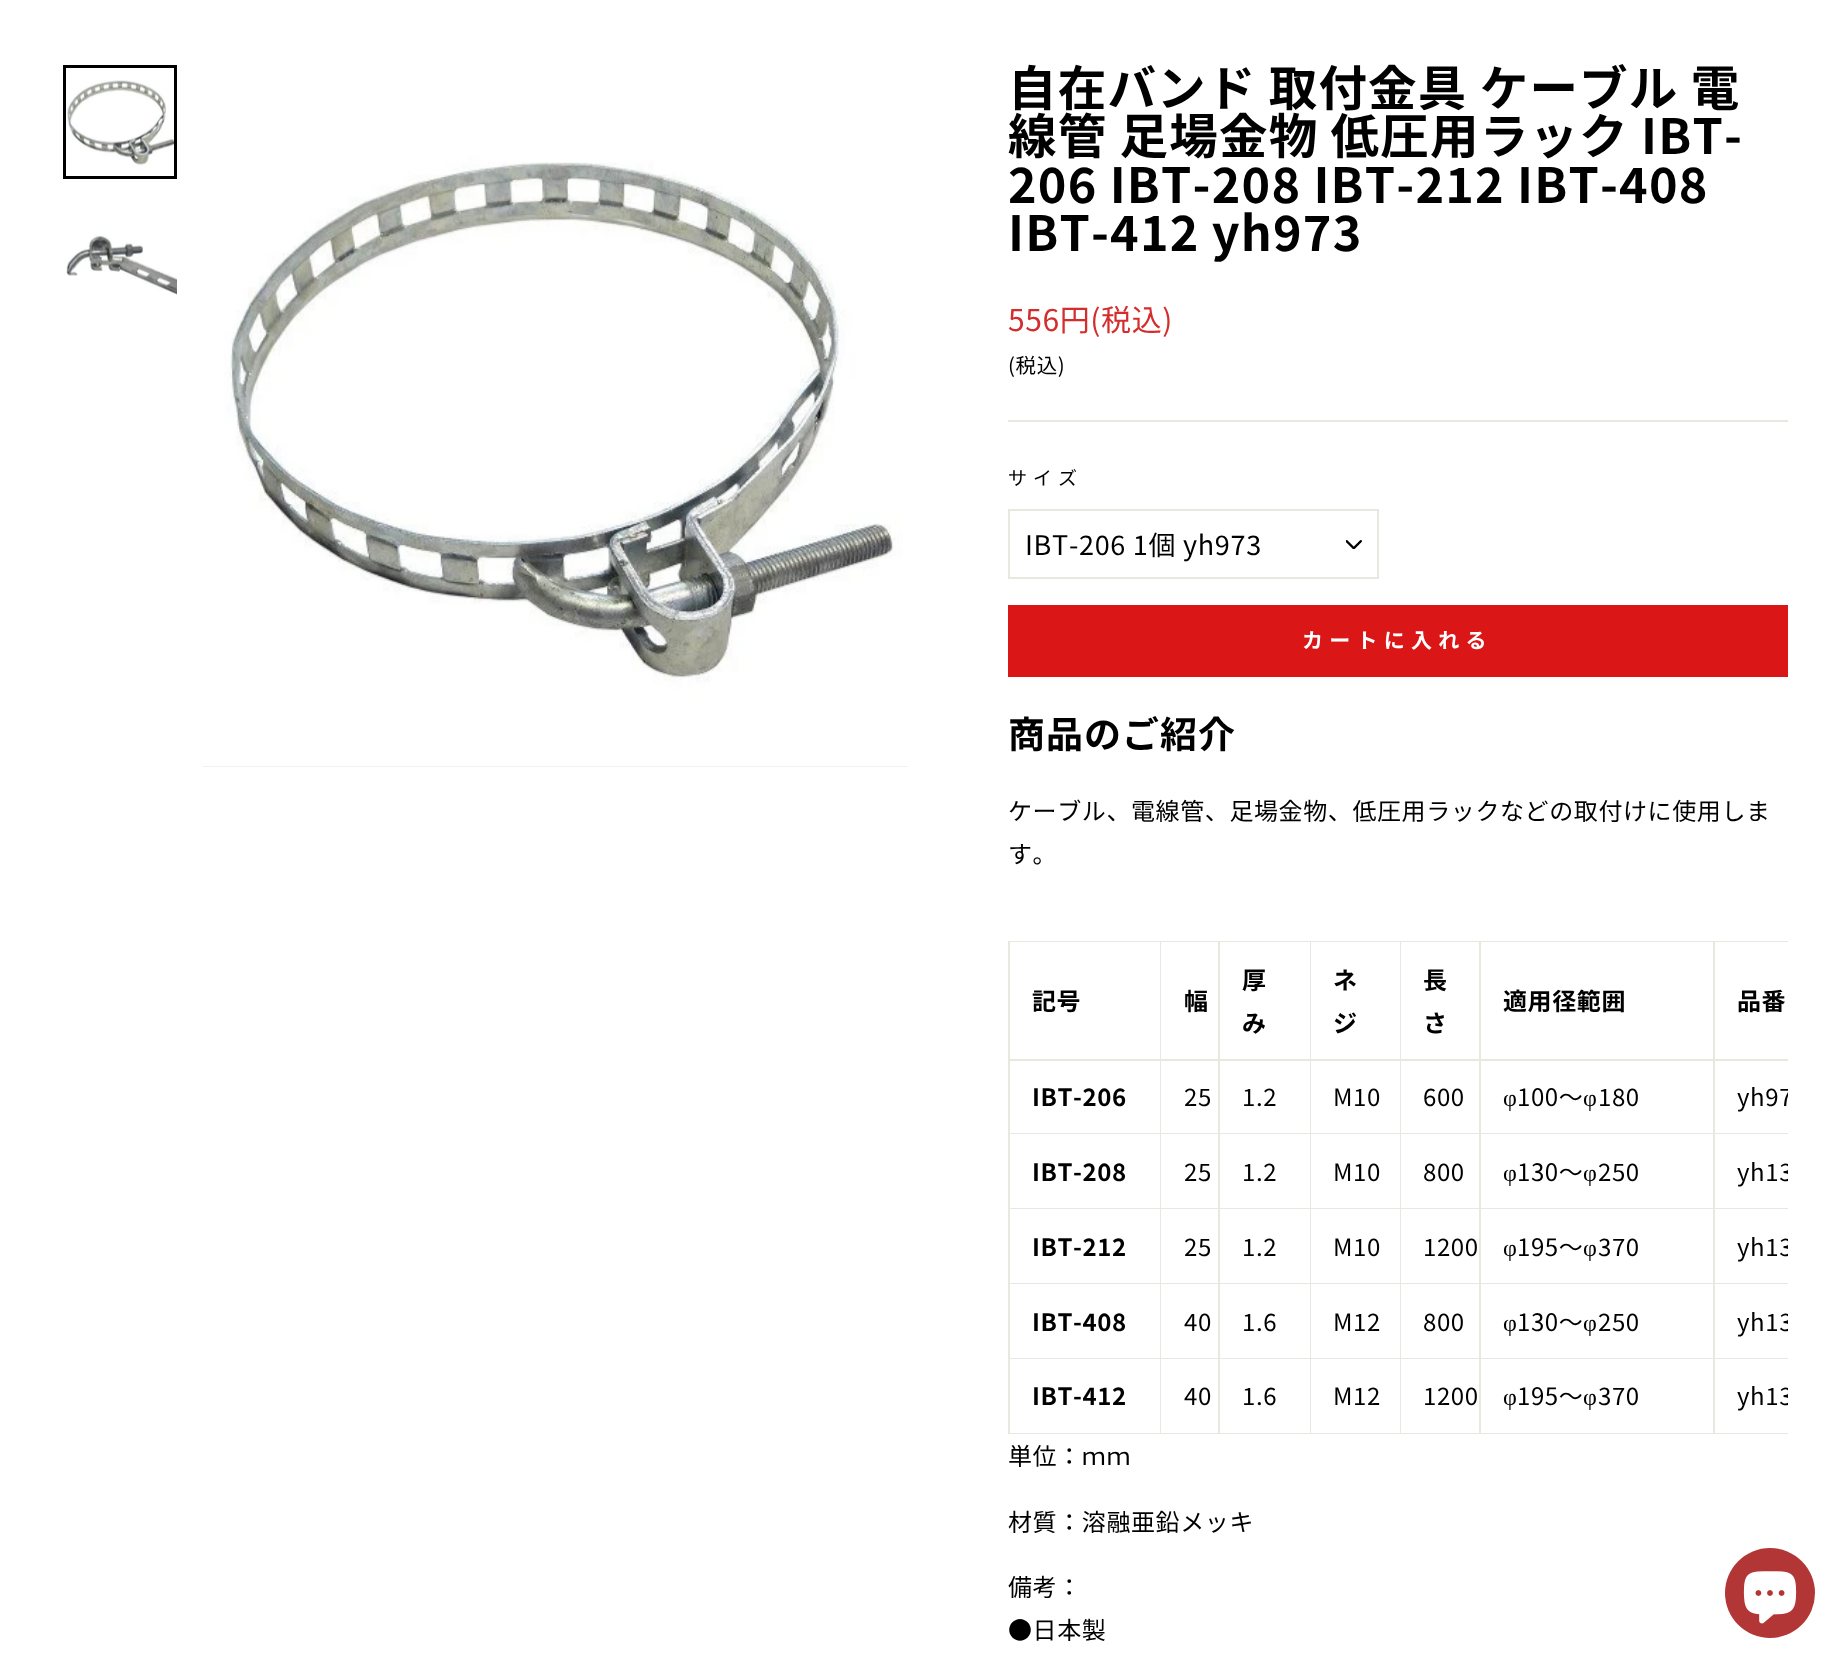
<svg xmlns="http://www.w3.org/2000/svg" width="1847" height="1669">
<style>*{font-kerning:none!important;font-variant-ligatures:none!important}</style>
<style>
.a{font:bold 48.5px Noto Sans JP;letter-spacing:1.2px;fill:#000}
.b{font:30px Noto Sans JP;letter-spacing:0.6px;fill:#d42d2d}
.c{font:20.5px Noto Sans JP;letter-spacing:0.6px;fill:#000}
.d{font:19px Noto Sans JP;letter-spacing:6px;fill:#000}
.e{font:27px Noto Sans JP;letter-spacing:0.7px;fill:#000}
.f{font:bold 21px Noto Sans JP;letter-spacing:6.25px;fill:#fff}
.g{font:bold 37px Noto Sans JP;letter-spacing:1px;fill:#000}
.h{font:24px Noto Sans JP;letter-spacing:0.6px;fill:#000}
.i{font:bold 24px Noto Sans JP;letter-spacing:0.6px;fill:#000}
.j{font:24px Liberation Serif;letter-spacing:0.6px;fill:#000}
</style>
<defs>
<clipPath id="clip1"><path d="M1008 941h780v493H1008z"/></clipPath>
</defs>
<rect width="100%" height="100%" fill="#fff"/>
<image href="1.png" x="66" y="68" width="108" height="108"/>
<path fill="none" stroke="#000" stroke-width="3" d="M64.5 66.5h111v111H64.5z"/>
<image href="2.png" x="63" y="207" width="114" height="114"/>
<path fill="#e5e5e5" d="M203 62h705v705H203z"/>
<image href="3.png" x="203" y="62" width="705" height="705"/>
<path fill="#e8e8e1" d="M1008 420h780v2H1008z"/>
<image href="4.png" x="1346" y="540" width="16" height="9"/>
<path fill="none" stroke="#e8e8e1" stroke-width="2" d="M1009 510h369v68H1009z"/>
<path fill="#da1616" d="M1008 605h780v72H1008z"/>
<path fill="#e8e8e1" d="M1008 941h780v493H1008z"/>
<path fill="#fff" d="M1010 942h150v117H1010z"/>
<path fill="#fff" d="M1161 942h57v117H1161z"/>
<path fill="#fff" d="M1220 942h90v117H1220z"/>
<path fill="#fff" d="M1311 942h89v117H1311z"/>
<path fill="#fff" d="M1401 942h78v117H1401z"/>
<path fill="#fff" d="M1481 942h232v117H1481z"/>
<path fill="#fff" d="M1715 942h73v117H1715z"/>
<path fill="#fff" d="M1010 1061h150v72H1010z"/>
<path fill="#fff" d="M1161 1061h57v72H1161z"/>
<path fill="#fff" d="M1220 1061h90v72H1220z"/>
<path fill="#fff" d="M1311 1061h89v72H1311z"/>
<path fill="#fff" d="M1401 1061h78v72H1401z"/>
<path fill="#fff" d="M1481 1061h232v72H1481z"/>
<path fill="#fff" d="M1715 1061h73v72H1715z"/>
<path fill="#fff" d="M1010 1134h150v74H1010z"/>
<path fill="#fff" d="M1161 1134h57v74H1161z"/>
<path fill="#fff" d="M1220 1134h90v74H1220z"/>
<path fill="#fff" d="M1311 1134h89v74H1311z"/>
<path fill="#fff" d="M1401 1134h78v74H1401z"/>
<path fill="#fff" d="M1481 1134h232v74H1481z"/>
<path fill="#fff" d="M1715 1134h73v74H1715z"/>
<path fill="#fff" d="M1010 1209h150v74H1010z"/>
<path fill="#fff" d="M1161 1209h57v74H1161z"/>
<path fill="#fff" d="M1220 1209h90v74H1220z"/>
<path fill="#fff" d="M1311 1209h89v74H1311z"/>
<path fill="#fff" d="M1401 1209h78v74H1401z"/>
<path fill="#fff" d="M1481 1209h232v74H1481z"/>
<path fill="#fff" d="M1715 1209h73v74H1715z"/>
<path fill="#fff" d="M1010 1284h150v74H1010z"/>
<path fill="#fff" d="M1161 1284h57v74H1161z"/>
<path fill="#fff" d="M1220 1284h90v74H1220z"/>
<path fill="#fff" d="M1311 1284h89v74H1311z"/>
<path fill="#fff" d="M1401 1284h78v74H1401z"/>
<path fill="#fff" d="M1481 1284h232v74H1481z"/>
<path fill="#fff" d="M1715 1284h73v74H1715z"/>
<path fill="#fff" d="M1010 1359h150v74H1010z"/>
<path fill="#fff" d="M1161 1359h57v74H1161z"/>
<path fill="#fff" d="M1220 1359h90v74H1220z"/>
<path fill="#fff" d="M1311 1359h89v74H1311z"/>
<path fill="#fff" d="M1401 1359h78v74H1401z"/>
<path fill="#fff" d="M1481 1359h232v74H1481z"/>
<path fill="#fff" d="M1715 1359h73v74H1715z"/>
<circle fill="#b33636" cx="1770" cy="1593" r="45"/>
<image href="5.png" x="1743" y="1571" width="54" height="53"/>
<text class="a" x="1008" y="106">自在バンド 取付金具 ケーブル 電</text>
<text class="a" x="1008" y="154">線管 足場金物 低圧用ラック IBT-</text>
<text class="a" x="1008" y="203">206 IBT-208 IBT-212</text>
<text class="a" x="1517" y="203">IBT-408</text>
<text class="a" x="1008" y="251">IBT-412 yh973</text>
<text class="b" x="1008" y="331">556円(税込)</text>
<text class="c" x="1008" y="373">(税込)</text>
<text class="d" x="1008" y="485">サイズ</text>
<text class="e" x="1025" y="555">IBT-206 1個 yh973</text>
<text class="f" x="1302" y="648">カートに入れる</text>
<text class="g" x="1008" y="748">商品のご紹介</text>
<text class="h" x="1008" y="820">ケーブル、電線管、足場金物、低圧用ラックなどの取付けに使用しま</text>
<text class="h" x="1008" y="863">す。</text>
<text class="i" x="1032" y="1010">記号</text>
<text class="i" x="1184" y="1010">幅</text>
<text class="i" x="1242" y="989">厚</text>
<text class="i" x="1242" y="1032">み</text>
<text class="i" x="1333" y="989">ネ</text>
<text class="i" x="1333" y="1032">ジ</text>
<text class="i" x="1423" y="989">長</text>
<text class="i" x="1423" y="1032">さ</text>
<text class="i" x="1503" y="1010">適用径範囲</text>
<text class="i" x="1737" y="1010">品番</text>
<text class="i" x="1032" y="1106">IBT-206</text>
<text class="h" x="1184" y="1106">25</text>
<text class="h" x="1242" y="1106">1.2</text>
<text class="h" x="1333" y="1106">M10</text>
<text class="h" x="1423" y="1106">600</text>
<text class="j" x="1503" y="1106">φ</text>
<text class="h" x="1517" y="1106">100～</text>
<text class="j" x="1583" y="1106">φ</text>
<text class="h" x="1598" y="1106">180</text>
<g clip-path="url(#clip1)">
<text class="h" x="1737" y="1106">yh97</text>
</g>
<text class="i" x="1032" y="1181">IBT-208</text>
<text class="h" x="1184" y="1181">25</text>
<text class="h" x="1242" y="1181">1.2</text>
<text class="h" x="1333" y="1181">M10</text>
<text class="h" x="1423" y="1181">800</text>
<text class="j" x="1503" y="1181">φ</text>
<text class="h" x="1517" y="1181">130～</text>
<text class="j" x="1583" y="1181">φ</text>
<text class="h" x="1598" y="1181">250</text>
<g clip-path="url(#clip1)">
<text class="h" x="1737" y="1181">yh13</text>
</g>
<text class="i" x="1032" y="1256">IBT-212</text>
<text class="h" x="1184" y="1256">25</text>
<text class="h" x="1242" y="1256">1.2</text>
<text class="h" x="1333" y="1256">M10</text>
<text class="h" x="1423" y="1256">1200</text>
<text class="j" x="1503" y="1256">φ</text>
<text class="h" x="1517" y="1256">195～</text>
<text class="j" x="1583" y="1256">φ</text>
<text class="h" x="1598" y="1256">370</text>
<g clip-path="url(#clip1)">
<text class="h" x="1737" y="1256">yh13</text>
</g>
<text class="i" x="1032" y="1331">IBT-408</text>
<text class="h" x="1184" y="1331">40</text>
<text class="h" x="1242" y="1331">1.6</text>
<text class="h" x="1333" y="1331">M12</text>
<text class="h" x="1423" y="1331">800</text>
<text class="j" x="1503" y="1331">φ</text>
<text class="h" x="1517" y="1331">130～</text>
<text class="j" x="1583" y="1331">φ</text>
<text class="h" x="1598" y="1331">250</text>
<g clip-path="url(#clip1)">
<text class="h" x="1737" y="1331">yh13</text>
</g>
<text class="i" x="1032" y="1405">IBT-412</text>
<text class="h" x="1184" y="1405">40</text>
<text class="h" x="1242" y="1405">1.6</text>
<text class="h" x="1333" y="1405">M12</text>
<text class="h" x="1423" y="1405">1200</text>
<text class="j" x="1503" y="1405">φ</text>
<text class="h" x="1517" y="1405">195～</text>
<text class="j" x="1583" y="1405">φ</text>
<text class="h" x="1598" y="1405">370</text>
<g clip-path="url(#clip1)">
<text class="h" x="1737" y="1405">yh13</text>
</g>
<text class="h" x="1008" y="1465">単位：ｍｍ</text>
<text class="h" x="1008" y="1531">材質：溶融亜鉛メッキ</text>
<text class="h" x="1008" y="1596">備考：</text>
<text class="h" x="1008" y="1639">●日本製</text>
</svg>
